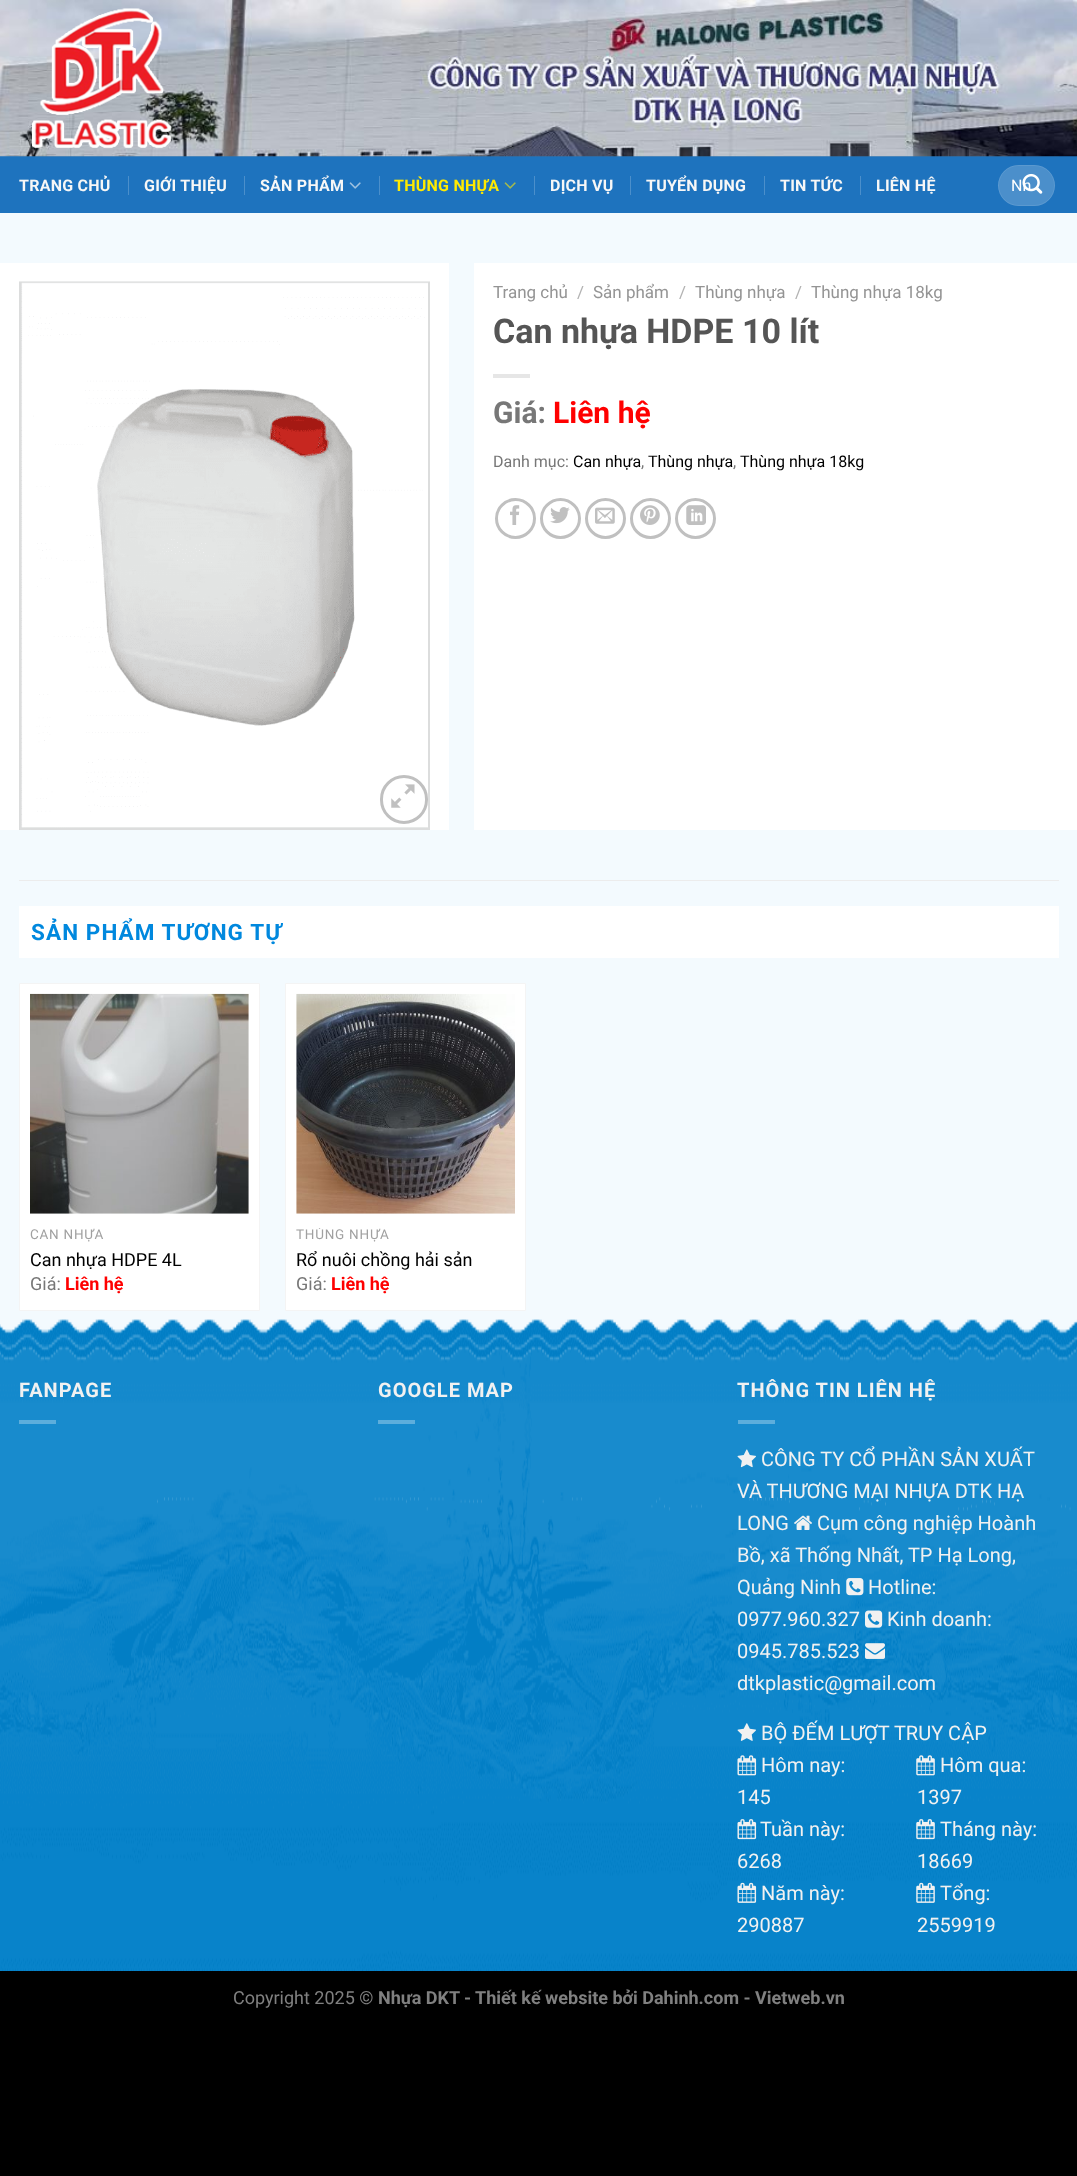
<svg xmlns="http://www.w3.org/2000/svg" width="1077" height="2176">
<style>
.a{font:bold 16px Roboto;letter-spacing:0.25px;fill:#f7f7f7}
.b{font:bold 16px Roboto;letter-spacing:0.25px;fill:#ffea00}
.c{font:16px Roboto;fill:#fff}
.d{font:17px Roboto;fill:#949494}
.e{font:17px Roboto;fill:#b2b2b2}
.f{font:bold 34px Roboto;fill:#555}
.g{font:bold 30px Roboto;fill:#777}
.h{font:bold 30px Roboto;fill:#f00}
.i{font:16px Roboto;fill:#777}
.j{font:16px Roboto;fill:#000}
.k{font:bold 22.5px Roboto;letter-spacing:1.1px;fill:#0088de}
.l{font:13.5px Roboto;letter-spacing:0.75px;fill:#a0a0a0}
.m{font:18px Roboto;fill:#000}
.n{font:18px Roboto;fill:#777}
.o{font:bold 18px Roboto;fill:#f00}
.p{font:bold 20px Roboto;letter-spacing:1px;fill:#f1f1f1}
.q{font:20px Roboto;fill:#f1f1f1}
.r{font:18px Roboto;fill:#808080}
.s{font:bold 18px Roboto;fill:#808080}
</style>
<defs>
<clipPath id="clip1"><path d="M296 1228h219v16H296z"/></clipPath>
</defs>
<rect width="100%" height="100%" fill="#000"/>
<path fill="#1e73be" d="M0 156h1077v57H0z"/>
<image href="1.png" x="0" y="0" width="1077" height="157"/>
<image href="2.png" x="32" y="8" width="140" height="141"/>
<path fill="#7777771a" d="M19 156h1040v1H19z"/>
<path fill="#4b8fcb" d="M128 176h1v19H128z"/>
<path fill="#4b8fcb" d="M244 176h1v19H244z"/>
<image href="3.png" x="349" y="182" width="12" height="7"/>
<path fill="#4b8fcb" d="M379 176h1v19H379z"/>
<image href="4.png" x="504" y="182" width="12" height="7"/>
<path fill="#4b8fcb" d="M534 176h1v19H534z"/>
<path fill="#4b8fcb" d="M630 176h1v19H630z"/>
<path fill="#4b8fcb" d="M764 176h1v19H764z"/>
<path fill="#4b8fcb" d="M860 176h1v19H860z"/>
<rect fill="#4b8fcb" x="998" y="165" width="57" height="41" rx="20.5"/>
<rect fill="none" stroke="#ffffff17" x="998.5" y="165.5" width="56" height="40" rx="20"/>
<path fill="#f3fafe" d="M0 213h1077v1121H0z"/>
<path fill="#fff" d="M0 263h449v567H0z"/>
<image href="6.png" x="19" y="281" width="411" height="549"/>
<rect fill="none" stroke="#c0c0c0" stroke-width="3" x="381.5" y="776.5" width="45" height="46" rx="22.5"/>
<image href="7.png" x="391" y="784" width="24" height="24"/>
<path fill="#fff" d="M474 263h603v567H474z"/>
<path fill="#e6e6e6" d="M493 374h37v4H493z"/>
<circle fill="none" stroke="#c0c0c0" stroke-width="3" cx="515.5" cy="518.5" r="19"/>
<image href="8.png" x="510" y="505" width="10" height="20"/>
<circle fill="none" stroke="#c0c0c0" stroke-width="3" cx="560.5" cy="518.5" r="19"/>
<image href="9.png" x="550" y="507" width="20" height="17"/>
<circle fill="none" stroke="#c0c0c0" stroke-width="3" cx="605.5" cy="518.5" r="19"/>
<image href="10.png" x="595" y="507" width="20" height="17"/>
<circle fill="none" stroke="#c0c0c0" stroke-width="3" cx="650.5" cy="518.5" r="19"/>
<image href="11.png" x="640" y="505" width="20" height="20"/>
<circle fill="none" stroke="#c0c0c0" stroke-width="3" cx="695.5" cy="518.5" r="19"/>
<image href="12.png" x="686" y="505" width="20" height="20"/>
<path fill="#ececec" d="M19 880h1040v1H19z"/>
<path fill="#fff" d="M19 906h1040v52H19z"/>
<path fill="#fff" stroke="#f4f4f4" d="M19.5 983.5h240v327H19.5z"/>
<image href="13.png" x="30" y="993" width="219" height="221"/>
<path fill="#fff" stroke="#f4f4f4" d="M285.5 983.5h240v327H285.5z"/>
<image href="14.png" x="296" y="993" width="219" height="221"/>
<image href="15.png" x="0" y="1319" width="1077" height="652"/>
<path fill="#5daedc" d="M19 1420h37v4H19z"/>
<path fill="#5daedc" d="M378 1420h37v4H378z"/>
<path fill="#5daedc" d="M738 1420h37v4H738z"/>
<image href="16.png" x="737" y="1449" width="19" height="19"/>
<image href="17.png" x="794" y="1515" width="18" height="15"/>
<image href="18.png" x="846" y="1578" width="18" height="18"/>
<image href="19.png" x="865" y="1610" width="18" height="18"/>
<image href="20.png" x="865" y="1643" width="20" height="16"/>
<image href="21.png" x="737" y="1723" width="19" height="18"/>
<image href="22.png" x="737" y="1755" width="20" height="21"/>
<image href="23.png" x="916" y="1755" width="19" height="21"/>
<image href="24.png" x="737" y="1819" width="20" height="21"/>
<image href="25.png" x="916" y="1819" width="19" height="21"/>
<image href="26.png" x="737" y="1882" width="20" height="21"/>
<image href="27.png" x="916" y="1882" width="19" height="21"/>
<text class="a" x="19" y="191">TRANG CHỦ</text>
<text class="a" x="144" y="191">GIỚI THIỆU</text>
<text class="a" x="260" y="191">SẢN PHẨM</text>
<text class="b" x="394" y="191">THÙNG NHỰA</text>
<text class="a" x="550" y="191">DỊCH VỤ</text>
<text class="a" x="646" y="191">TUYỂN DỤNG</text>
<text class="a" x="780" y="191">TIN TỨC</text>
<text class="a" x="876" y="191">LIÊN HỆ</text>
<text class="c" x="1011" y="191">Nh</text>
<image href="5.png" x="1022" y="173" width="21" height="21"/>
<text class="d" x="493" y="298">Trang chủ</text>
<text class="e" x="577" y="298">/</text>
<text class="d" x="593" y="298">Sản phẩm</text>
<text class="e" x="679" y="298">/</text>
<text class="d" x="695" y="298">Thùng nhựa</text>
<text class="e" x="795" y="298">/</text>
<text class="d" x="811" y="298">Thùng nhựa 18kg</text>
<text class="f" x="493" y="343">Can nhựa HDPE 10 lít</text>
<text class="g" x="493" y="423">Giá:</text>
<text class="h" x="553" y="423">Liên hệ</text>
<text class="i" x="493" y="467">Danh mục:</text>
<text class="j" x="573" y="467">Can nhựa</text>
<text class="i" x="641" y="467">,</text>
<text class="j" x="648" y="467">Thùng nhựa</text>
<text class="i" x="733" y="467">,</text>
<text class="j" x="740" y="467">Thùng nhựa 18kg</text>
<text class="k" x="31" y="940">SẢN PHẨM TƯƠNG TỰ</text>
<text class="l" x="30" y="1239">CAN NHỰA</text>
<text class="m" x="30" y="1266">Can nhựa HDPE 4L</text>
<text class="n" x="30" y="1290">Giá:</text>
<text class="o" x="65" y="1290">Liên hệ</text>
<g clip-path="url(#clip1)">
<text class="l" x="296" y="1239">THÙNG NHỰA</text>
</g>
<text class="m" x="296" y="1266">Rổ nuôi chồng hải sản</text>
<text class="n" x="296" y="1290">Giá:</text>
<text class="o" x="331" y="1290">Liên hệ</text>
<text class="p" x="19" y="1397">FANPAGE</text>
<text class="p" x="378" y="1397">GOOGLE MAP</text>
<text class="p" x="737" y="1397">THÔNG TIN LIÊN HỆ</text>
<text class="q" x="761" y="1466">CÔNG TY CỔ PHẦN SẢN XUẤT</text>
<text class="q" x="737" y="1498">VÀ THƯƠNG MẠI NHỰA DTK HẠ</text>
<text class="q" x="737" y="1530">LONG</text>
<text class="q" x="817" y="1530">Cụm công nghiệp Hoành</text>
<text class="q" x="737" y="1562">Bồ, xã Thống Nhất, TP Hạ Long,</text>
<text class="q" x="737" y="1594">Quảng Ninh</text>
<text class="q" x="868" y="1594">Hotline:</text>
<text class="q" x="737" y="1626">0977.960.327</text>
<text class="q" x="887" y="1626">Kinh doanh:</text>
<text class="q" x="737" y="1658">0945.785.523</text>
<text class="q" x="737" y="1690">dtkplastic@gmail.com</text>
<text class="q" x="761" y="1740">BỘ ĐẾM LƯỢT TRUY CẬP</text>
<text class="q" x="761" y="1772">Hôm nay:</text>
<text class="q" x="737" y="1804">145</text>
<text class="q" x="940" y="1772">Hôm qua:</text>
<text class="q" x="917" y="1804">1397</text>
<text class="q" x="760" y="1836">Tuần này:</text>
<text class="q" x="737" y="1868">6268</text>
<text class="q" x="940" y="1836">Tháng này:</text>
<text class="q" x="917" y="1868">18669</text>
<text class="q" x="761" y="1900">Năm này:</text>
<text class="q" x="737" y="1932">290887</text>
<text class="q" x="940" y="1900">Tổng:</text>
<text class="q" x="917" y="1932">2559919</text>
<text class="r" x="233" y="2004">Copyright 2025 ©</text>
<text class="s" x="378" y="2004">Nhựa DKT -</text>
<text class="s" x="475" y="2004">Thiết kế website bởi Dahinh.com - Vietweb.vn</text>
</svg>
